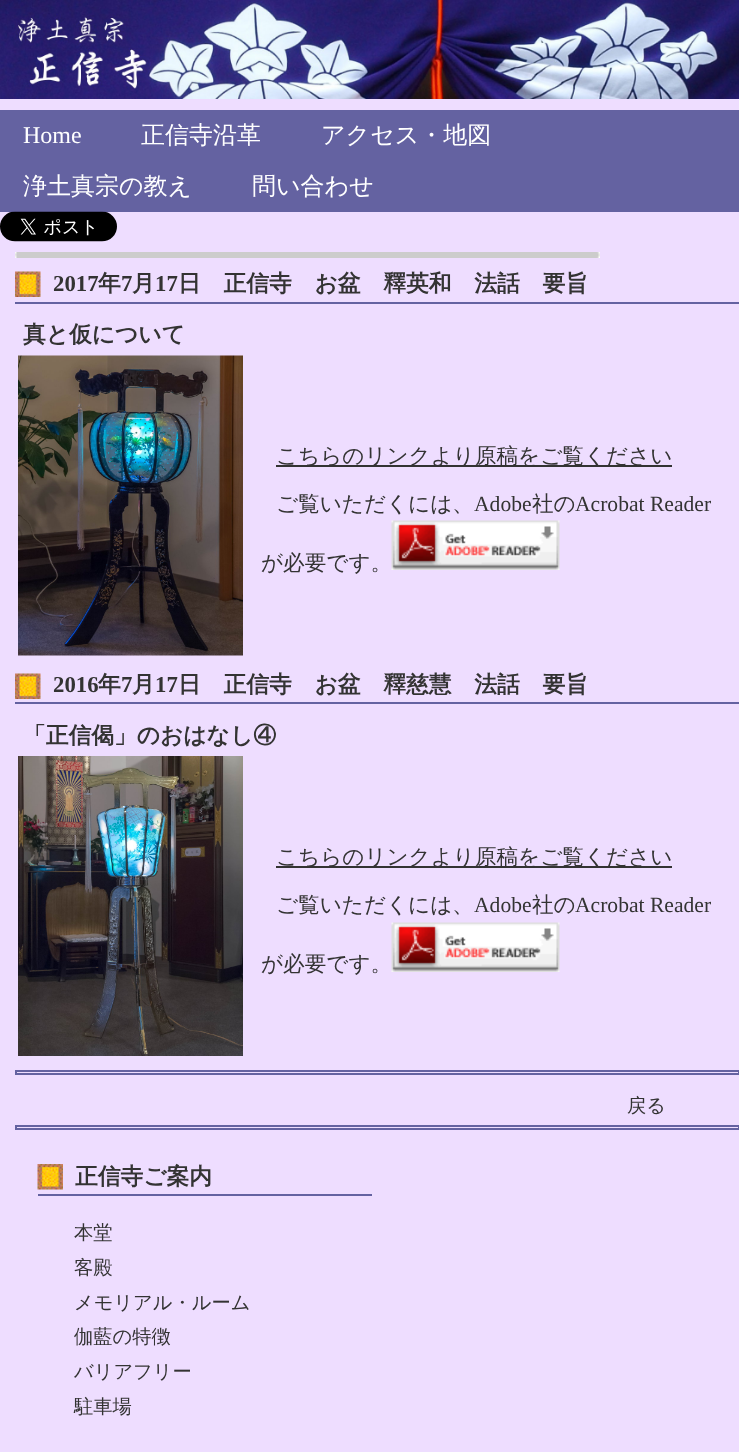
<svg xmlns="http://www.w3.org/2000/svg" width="739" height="1452">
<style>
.a{font:24px Liberation Serif;fill:#fff}
.b{font:500 24px WenQuanYi Zen Hei;fill:#fff}
.c{font:bold 22.75px Liberation Serif;fill:#333}
.d{font:bold 22.75px WenQuanYi Zen Hei;fill:#333}
.e{font:500 21.6px WenQuanYi Zen Hei;fill:#333}
.f{font:21.6px Liberation Serif;fill:#333}
.g{font:500 19.25px WenQuanYi Zen Hei;fill:#333}
</style>
<rect width="100%" height="100%" fill="#edf"/>
<image href="1.png" x="0" y="0" width="739" height="99"/>
<path fill="#6462a1" d="M0 110h739v102H0z"/>
<image href="2.png" x="0" y="211" width="117" height="31"/>
<image href="3.png" x="15" y="252" width="585" height="6"/>
<image href="4.png" x="15" y="271" width="26" height="26"/>
<path fill="#6462a1" d="M15 302h724v2H15z"/>
<image href="5.png" x="18" y="355" width="225" height="301"/>
<path fill="#333" d="M276 465h396v2H276z"/>
<image href="6.png" x="391" y="520" width="169" height="50"/>
<image href="4.png" x="15" y="673" width="26" height="26"/>
<path fill="#6462a1" d="M15 702h724v2H15z"/>
<image href="7.png" x="18" y="756" width="225" height="300"/>
<path fill="#333" d="M276 866h396v2H276z"/>
<image href="6.png" x="391" y="922" width="169" height="50"/>
<path fill="none" stroke="#6462a1" stroke-width="2" d="M16 1071h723v3H16z"/>
<path fill="none" stroke="#6462a1" stroke-width="2" d="M16 1126h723v3H16z"/>
<image href="8.png" x="37" y="1164" width="26" height="26"/>
<path fill="#6462a1" d="M38 1194h334v2H38z"/>
<text class="a" x="23" y="143">Home</text>
<text class="b" x="141" y="143">正信寺沿革</text>
<text class="b" x="321" y="143">アクセス・地図</text>
<text class="b" x="23" y="194">浄土真宗の教え</text>
<text class="b" x="252" y="194">問い合わせ</text>
<text class="c" x="53" y="291">2017</text>
<text class="d" x="98" y="291">年</text>
<text class="c" x="121" y="291">7</text>
<text class="d" x="132" y="291">月</text>
<text class="c" x="155" y="291">17</text>
<text class="d" x="178" y="291">日　正信寺　お盆　釋英和　法話　要旨</text>
<text class="d" x="23" y="342">真と仮について</text>
<text class="e" x="276" y="463">こちらのリンクより原稿をご覧ください</text>
<text class="e" x="276" y="511">ご覧いただくには、</text>
<text class="f" x="474" y="511">Adobe</text>
<text class="e" x="532" y="511">社の</text>
<text class="f" x="575" y="511">Acrobat Reader</text>
<text class="e" x="261" y="570">が必要です。</text>
<text class="c" x="53" y="692">2016</text>
<text class="d" x="98" y="692">年</text>
<text class="c" x="121" y="692">7</text>
<text class="d" x="132" y="692">月</text>
<text class="c" x="155" y="692">17</text>
<text class="d" x="178" y="692">日　正信寺　お盆　釋慈慧　法話　要旨</text>
<text class="d" x="23" y="743">「正信偈」のおはなし④</text>
<text class="e" x="276" y="864">こちらのリンクより原稿をご覧ください</text>
<text class="e" x="276" y="912">ご覧いただくには、</text>
<text class="f" x="474" y="912">Adobe</text>
<text class="e" x="532" y="912">社の</text>
<text class="f" x="575" y="912">Acrobat Reader</text>
<text class="e" x="261" y="971">が必要です。</text>
<text class="g" x="627" y="1112">戻る</text>
<text class="d" x="75" y="1184">正信寺ご案内</text>
<text class="g" x="74" y="1239">本堂</text>
<text class="g" x="74" y="1274">客殿</text>
<text class="g" x="74" y="1309">メモリアル・ルーム</text>
<text class="g" x="74" y="1343">伽藍の特徴</text>
<text class="g" x="74" y="1378">バリアフリー</text>
<text class="g" x="74" y="1413">駐車場</text>
</svg>
